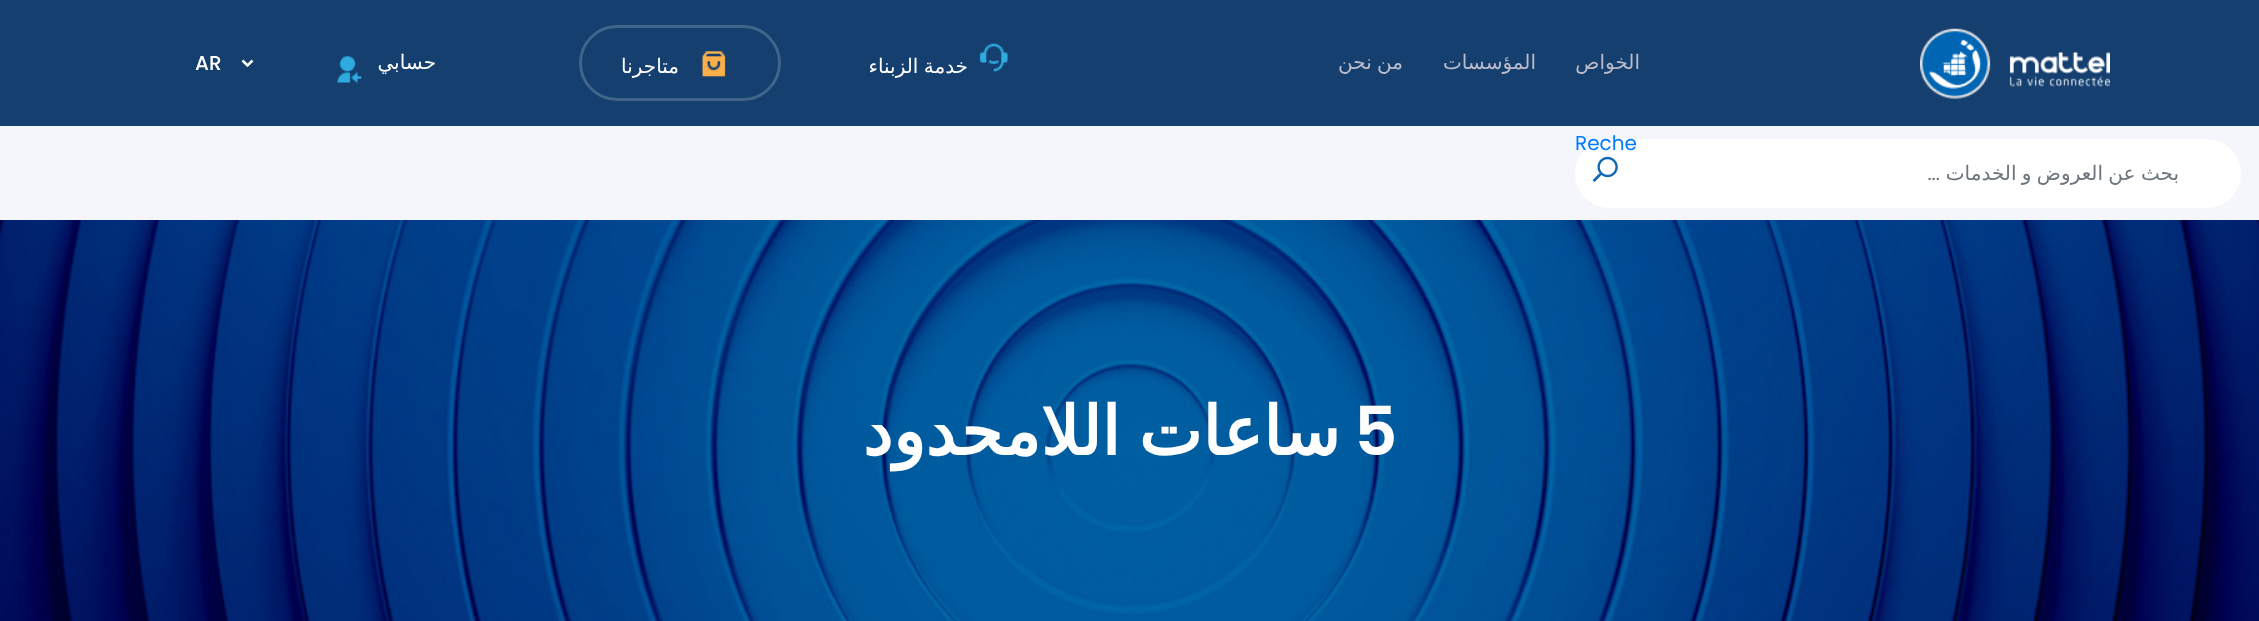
<svg xmlns="http://www.w3.org/2000/svg" width="2259" height="621">
<style>
.a{font:20px DejaVu Sans;direction:rtl;fill:#bbbbcb}
.b{font:20px DejaVu Sans;direction:rtl;fill:#fff}
.c{font:500 20px Poppins;fill:#fff}
.d{font:20px Poppins;fill:#007bff}
.e{font:20px DejaVu Sans;direction:rtl;fill:#6c757d}
.f{font:20px Poppins;direction:rtl;fill:#6c757d}
.g{font:600 67.5px Poppins;fill:#fff}
.h{font:bold 67.5px DejaVu Sans;direction:rtl;fill:#fff}
</style>
<rect width="100%" height="100%" fill="#143f6e"/>
<image href="1.png" x="1920" y="28" width="190" height="71"/>
<image href="2.png" x="979" y="43" width="29" height="29"/>
<rect fill="none" stroke="#41648a" stroke-width="3" x="580.5" y="26.5" width="199" height="73" rx="36.5"/>
<image href="3.png" x="702" y="51" width="24" height="26"/>
<image href="4.png" x="337" y="56" width="25" height="28"/>
<path fill="none" stroke="#fff" stroke-width="2.5" d="M242.5 60.5l5 5l5-5"/>
<path fill="#f4f6fc" d="M0 126h2259v94H0z"/>
<rect fill="#fff" x="1575" y="139" width="666" height="69" rx="34.5"/>
<image href="5.png" x="1592" y="156" width="26" height="26"/>
<image href="6.png" x="0" y="220" width="2259" height="401"/>
<text class="a" x="1640" y="69">الخواص</text>
<text class="a" x="1536" y="69">المؤسسات</text>
<text class="a" x="1403" y="69" word-spacing="-1">من نحن</text>
<text class="b" x="968" y="73" word-spacing="-1">خدمة الزبناء</text>
<text class="b" x="679" y="73">متاجرنا</text>
<text class="b" x="436" y="69">حسابي</text>
<text class="c" x="195" y="70">AR</text>
<text class="d" x="1575" y="150">Reche</text>
<text class="e" x="2179" y="180" word-spacing="-1">بحث عن العروض و الخدمات</text>
<text class="f" x="1940" y="180">...</text>
<text class="g" x="1354" y="455">5</text>
<text class="h" x="1340" y="455" word-spacing="-3">ساعات اللامحدود</text>
</svg>
